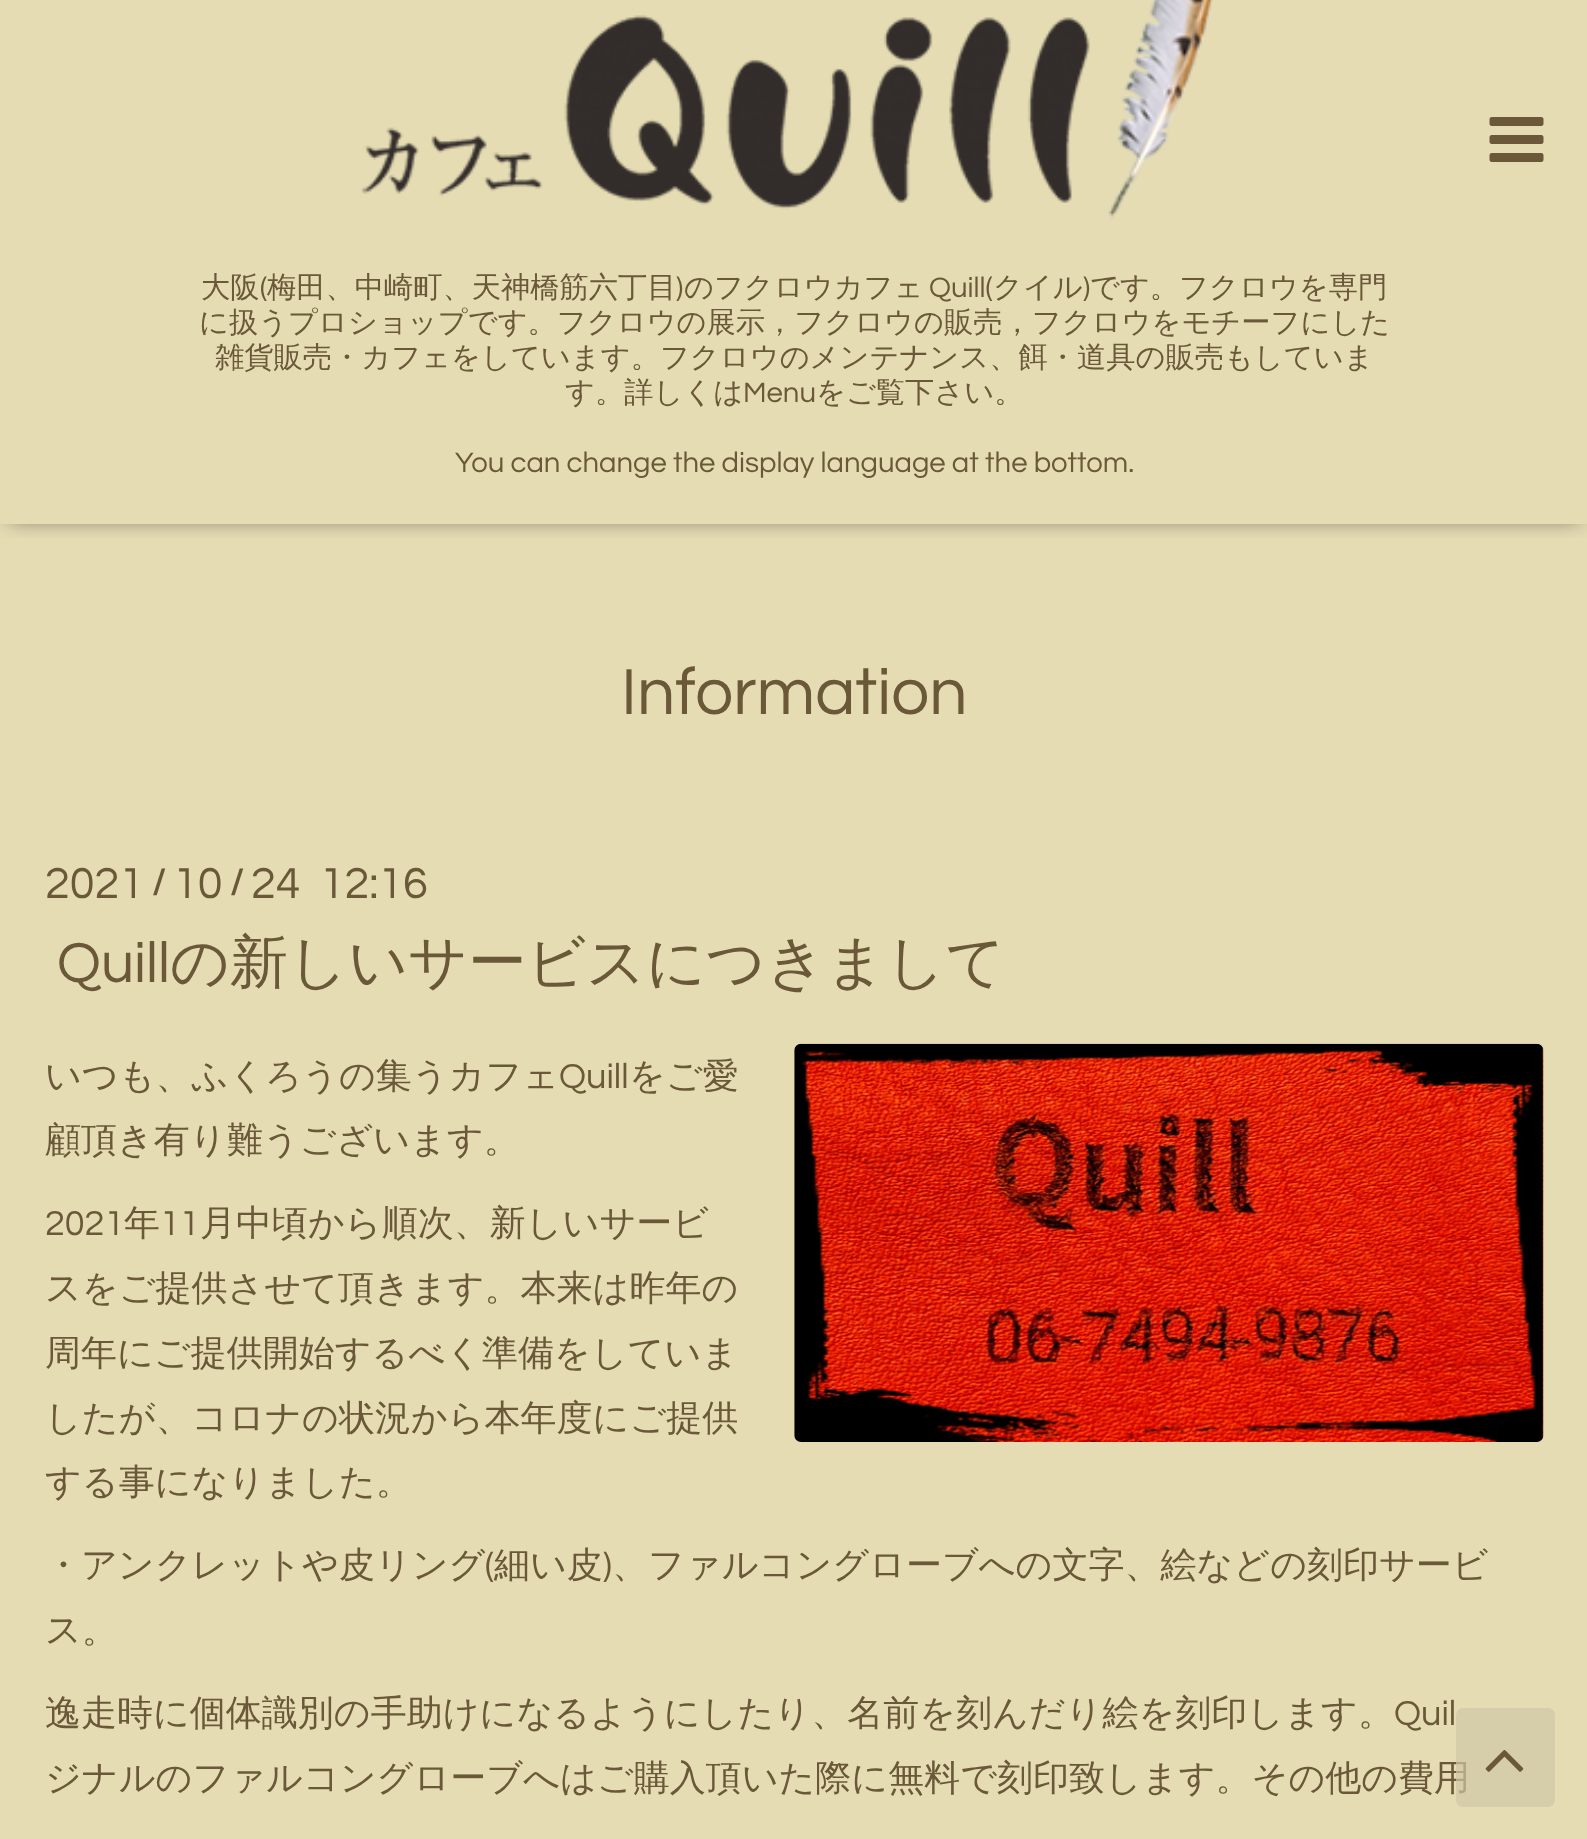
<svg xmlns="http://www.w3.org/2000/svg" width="1587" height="1839">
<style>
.a{font:500 29.25px WenQuanYi Zen Hei;fill:#6a5839}
.b{font:29.25px Questrial;fill:#6a5839}
.c{font:67.5px Questrial;fill:#6a5839}
.d{font:45px Questrial;fill:#6a5839}
.e{font:bold 36px Questrial;fill:#6a5839}
.f{font:58.5px Questrial;fill:#6a5839}
.g{font:500 58.5px WenQuanYi Zen Hei;fill:#6a5839}
.h{font:500 36px WenQuanYi Zen Hei;fill:#6a5839}
.i{font:36px Questrial;fill:#6a5839}
</style>
<defs>
<clipPath id="clip1"><path d="M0 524h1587v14H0z"/></clipPath>
</defs>
<rect width="100%" height="100%" fill="#e5dcb4"/>
<g clip-path="url(#clip1)">
<path fill="#00000099" filter="blur(11px)" d="M9 -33h1571v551H9z"/>
</g>
<image href="1.png" x="1489" y="117" width="55" height="45"/>
<image href="2.png" x="361" y="0" width="852" height="220"/>
<image href="3.png" x="794" y="1043" width="750" height="399"/>
<text class="a" x="201" y="297">大阪</text>
<text class="b" x="260" y="297">(</text>
<text class="a" x="267" y="297">梅田、中崎町、天神橋筋六丁目</text>
<text class="b" x="676" y="297">)</text>
<text class="a" x="684" y="297">のフクロウカフェ</text>
<text class="b" x="929" y="297">Quill(</text>
<text class="a" x="993" y="297">クイル</text>
<text class="b" x="1083" y="297">)</text>
<text class="a" x="1090" y="297">です。フクロウを専門</text>
<text class="a" x="199" y="332">に扱うプロショップです。フクロウの展示，フクロウの販売，フクロウをモチーフにした</text>
<text class="a" x="215" y="367">雑貨販売・カフェをしています。フクロウのメンテナンス、餌・道具の販売もしていま</text>
<text class="a" x="565" y="402">す。詳しくは</text>
<text class="b" x="743" y="402">Menu</text>
<text class="a" x="816" y="402">をご覧下さい。</text>
<text class="b" x="455" y="472">You can change the display language at the bottom.</text>
<text class="c" x="621" y="714">Information</text>
<text class="d" x="45" y="898">2021</text>
<text class="e" x="152" y="894">/</text>
<text class="d" x="173" y="898">10</text>
<text class="e" x="230" y="894">/</text>
<text class="d" xml:space="preserve" x="251" y="898">24  12:16</text>
<text class="f" x="57" y="982">Quill</text>
<text class="g" x="170" y="982">の新しいサービスにつきまして</text>
<text class="h" x="45" y="1088">いつも、ふくろうの集うカフェ</text>
<text class="i" x="559" y="1088">Quill</text>
<text class="h" x="629" y="1088">をご愛</text>
<text class="h" x="45" y="1152">顧頂き有り難うございます。</text>
<text class="i" x="45" y="1235">2021</text>
<text class="h" x="124" y="1235">年</text>
<text class="i" x="160" y="1235">11</text>
<text class="h" x="200" y="1235">月中頃から順次、新しいサービ</text>
<text class="h" x="45" y="1300">スをご提供させて頂きます。本来は昨年の</text>
<text class="h" x="45" y="1365">周年にご提供開始するべく準備をしていま</text>
<text class="h" x="45" y="1430">したが、コロナの状況から本年度にご提供</text>
<text class="h" x="45" y="1494">する事になりました。</text>
<text class="h" x="45" y="1577">・アンクレットや皮リング</text>
<text class="i" x="485" y="1577">(</text>
<text class="h" x="494" y="1577">細い皮</text>
<text class="i" x="603" y="1577">)</text>
<text class="h" x="612" y="1577">、ファルコングローブへの文字、絵などの刻印サービ</text>
<text class="h" x="45" y="1642">ス。</text>
<text class="h" x="45" y="1725">逸走時に個体識別の手助けになるようにしたり、名前を刻んだり絵を刻印します。</text>
<text class="i" x="1394" y="1725">Quil</text>
<text class="h" x="45" y="1790">ジナルのファルコングローブへはご購入頂いた際に無料で刻印致します。その他の費用</text>
<rect fill="#d0c8a7b3" x="1456" y="1708" width="99" height="99" rx="7"/>
<image href="4.png" x="1485" y="1750" width="39" height="22"/>
</svg>
